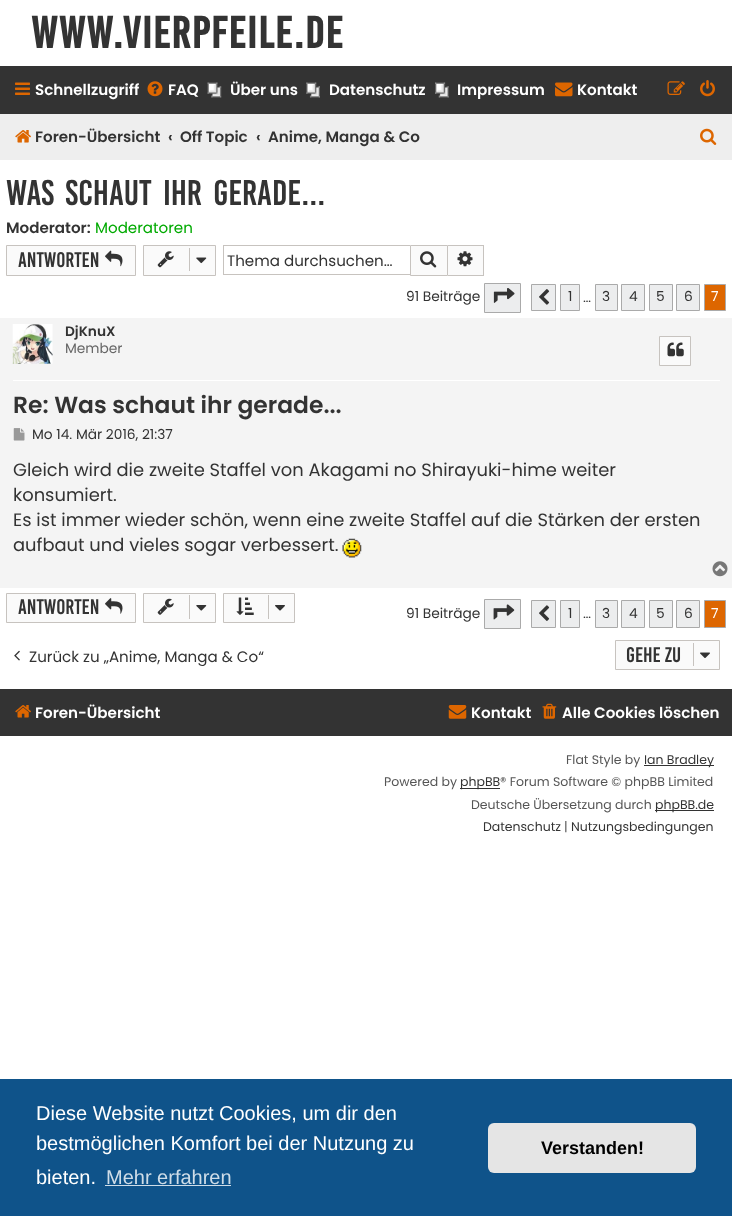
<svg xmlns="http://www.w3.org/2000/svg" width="732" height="1216">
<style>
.a{font:bold 34.4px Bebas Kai;letter-spacing:1.25px;fill:#333}
.b{font:600 15.1px Poppins;fill:#fff}
.c{font:600 15.1px Poppins;fill:#333}
.d{font:27.5px Bebas Kai;fill:#333}
.e{font:15.1px Poppins;fill:#0a0}
.f{font:16.25px Bebas Kai;fill:#333}
.g{font:15.1px Poppins;fill:#333}
.h{font:13.75px Poppins;fill:#333}
.i{font:13.75px Poppins;fill:#fff}
.j{font:600 13.75px Poppins;fill:#333}
.k{font:13.75px Poppins;fill:#666}
.l{font:600 23.4px Poppins;fill:#333}
.m{font:17.9px Poppins;fill:#333}
.n{font:12.5px Poppins;fill:#555}
.o{font:12.5px Poppins;fill:#333}
.p{font:20px Liberation Sans;fill:#fff}
.q{font:20px Liberation Sans;fill:#cfdde8}
.r{font:bold 18px Liberation Sans;fill:#000}
</style>
<defs>
<clipPath id="clip1"><path d="M13 121h147v33H13z"/></clipPath>
<clipPath id="clip2"><path d="M13 696h147v34H13z"/></clipPath>
</defs>
<rect width="100%" height="100%" fill="#fff"/>
<path fill="#333" d="M0 66h732v48H0z"/>
<image href="1.png" x="15" y="82" width="15" height="13"/>
<image href="2.png" x="147" y="81" width="16" height="16"/>
<image href="3.png" x="207" y="82" width="15" height="16"/>
<image href="4.png" x="306" y="82" width="14" height="16"/>
<image href="5.png" x="435" y="82" width="14" height="16"/>
<image href="6.png" x="555" y="82" width="18" height="15"/>
<image href="7.png" x="667" y="81" width="18" height="14"/>
<image href="8.png" x="700" y="80" width="15" height="17"/>
<path fill="#eee" d="M0 114h732v46H0z"/>
<image href="9.png" x="15" y="130" width="16" height="13"/>
<image href="10.png" x="700" y="128" width="17" height="17"/>
<path fill="#fafafa" stroke="#c7c3bf" d="M6.5 245.5h129v30H6.5z"/>
<image href="11.png" x="105" y="250" width="18" height="17"/>
<path fill="#fafafa" stroke="#c7c3bf" d="M143.5 245.5h72v30H143.5z"/>
<image href="12.png" x="157" y="251" width="17" height="17"/>
<path fill="#c7c3bf" d="M189 248h1v23H189z"/>
<image href="13.png" x="196" y="257" width="11" height="7"/>
<path fill="#c7c3bf" d="M223 245h187v1H223z"/>
<path fill="#c7c3bf" d="M223 274h187v1H223z"/>
<path fill="#c7c3bf" d="M223 245h1v30H223z"/>
<path fill="#fafafa" stroke="#c7c3bf" d="M410.5 245.5h37v30H410.5z"/>
<image href="14.png" x="420" y="251" width="17" height="17"/>
<path fill="#fafafa" d="M448 246h35v29H448z"/>
<path fill="#c7c3bf" d="M448 245h36v1H448z"/>
<path fill="#c7c3bf" d="M483 245h1v31H483z"/>
<path fill="#c7c3bf" d="M448 275h36v1H448z"/>
<image href="15.png" x="457" y="251" width="16" height="16"/>
<path fill="#ecedee" stroke="#aaa" d="M484.5 283.5h36v29H484.5z"/>
<image href="16.png" x="493" y="288" width="22" height="15"/>
<path fill="#ecedee" stroke="#aaa" d="M531.5 284.5h24v26H531.5z"/>
<image href="17.png" x="539" y="289" width="11" height="16"/>
<path fill="#ecedee" stroke="#aaa" d="M560.5 284.5h19v26H560.5z"/>
<path fill="#ecedee" stroke="#aaa" d="M595.5 284.5h22v26H595.5z"/>
<path fill="#ecedee" stroke="#aaa" d="M621.5 284.5h23v26H621.5z"/>
<path fill="#ecedee" stroke="#aaa" d="M649.5 284.5h23v26H649.5z"/>
<path fill="#ecedee" stroke="#aaa" d="M676.5 284.5h23v26H676.5z"/>
<path fill="#d60" stroke="#aaa" d="M704.5 284.5h21v26H704.5z"/>
<path fill="#f4f4f4" d="M0 318h732v270H0z"/>
<path fill="#fff" d="M13 380h707v1H13z"/>
<image href="18.png" x="12" y="324" width="41" height="40"/>
<path fill="#fafafa" stroke="#c7c3bf" d="M659.5 336.5h31v29H659.5z"/>
<image href="19.png" x="667" y="342" width="17" height="15"/>
<image href="20.png" x="13" y="428" width="12" height="13"/>
<image href="21.png" x="342" y="538" width="20" height="20"/>
<image href="22.png" x="712" y="561" width="16" height="16"/>
<path fill="#fafafa" stroke="#c7c3bf" d="M6.5 593.5h129v29H6.5z"/>
<image href="23.png" x="105" y="598" width="18" height="16"/>
<path fill="#fafafa" stroke="#c7c3bf" d="M143.5 593.5h72v29H143.5z"/>
<image href="24.png" x="157" y="598" width="17" height="17"/>
<path fill="#c7c3bf" d="M189 595h1v24H189z"/>
<image href="25.png" x="196" y="605" width="11" height="6"/>
<path fill="#fafafa" stroke="#c7c3bf" d="M223.5 593.5h71v29H223.5z"/>
<image href="26.png" x="236" y="597" width="18" height="18"/>
<path fill="#c7c3bf" d="M268 595h1v24H268z"/>
<image href="27.png" x="275" y="605" width="10" height="6"/>
<path fill="#ecedee" stroke="#aaa" d="M484.5 599.5h36v29H484.5z"/>
<image href="28.png" x="493" y="604" width="22" height="16"/>
<path fill="#ecedee" stroke="#aaa" d="M531.5 600.5h24v27H531.5z"/>
<image href="29.png" x="539" y="605" width="11" height="16"/>
<path fill="#ecedee" stroke="#aaa" d="M560.5 600.5h19v27H560.5z"/>
<path fill="#ecedee" stroke="#aaa" d="M595.5 600.5h22v27H595.5z"/>
<path fill="#ecedee" stroke="#aaa" d="M621.5 600.5h23v27H621.5z"/>
<path fill="#ecedee" stroke="#aaa" d="M649.5 600.5h23v27H649.5z"/>
<path fill="#ecedee" stroke="#aaa" d="M676.5 600.5h23v27H676.5z"/>
<path fill="#d60" stroke="#aaa" d="M704.5 600.5h21v27H704.5z"/>
<image href="30.png" x="14" y="650" width="6" height="11"/>
<path fill="#fafafa" stroke="#c7c3bf" d="M615.5 640.5h104v29H615.5z"/>
<path fill="#c7c3bf" d="M693 643h1v23H693z"/>
<image href="31.png" x="700" y="652" width="10" height="6"/>
<path fill="#333" d="M0 689h732v47H0z"/>
<image href="32.png" x="15" y="705" width="16" height="13"/>
<image href="33.png" x="448" y="705" width="19" height="14"/>
<image href="34.png" x="542" y="703" width="15" height="16"/>
<path fill="#333" d="M644 765h70v1H644z"/>
<path fill="#333" d="M460 788h40v1H460z"/>
<path fill="#333" d="M655 810h59v1H655z"/>
<path fill="#0f538a" d="M0 1079h732v137H0z"/>
<path fill="#cfdde8" d="M105 1185h126v1H105z"/>
<rect fill="#e5e5e5" x="488" y="1123" width="208" height="50" rx="6"/>
<text class="a" x="31" y="48">www.vierpfeile.de</text>
<text class="b" x="35" y="95">Schnellzugriff</text>
<text class="b" x="168" y="95">FAQ</text>
<text class="b" x="230" y="95">Über uns</text>
<text class="b" x="329" y="95">Datenschutz</text>
<text class="b" x="457" y="95">Impressum</text>
<text class="b" x="577" y="95">Kontakt</text>
<g clip-path="url(#clip1)">
<text class="c" x="35" y="142">Foren-Übersicht</text>
</g>
<text class="c" x="168" y="142">‹</text>
<text class="c" x="180" y="142">Off Topic</text>
<text class="c" x="256" y="142">‹</text>
<text class="c" x="268" y="142">Anime, Manga &amp; Co</text>
<text class="d" x="6" y="205" word-spacing="5">Was schaut ihr gerade...</text>
<text class="c" x="6" y="233">Moderator:</text>
<text class="e" x="95" y="233">Moderatoren</text>
<text class="f" x="18" y="267">Antworten</text>
<text class="g" x="227" y="266">Thema durchsuchen…</text>
<text class="h" x="406" y="301">91 Beiträge</text>
<text class="h" x="568" y="301">1</text>
<text class="h" x="602" y="301">3</text>
<text class="h" x="629" y="301">4</text>
<text class="h" x="656" y="301">5</text>
<text class="h" x="684" y="301">6</text>
<text class="i" x="711" y="301">7</text>
<text class="h" x="583" y="302">…</text>
<text class="j" x="65" y="336">DjKnuX</text>
<text class="k" x="65" y="353">Member</text>
<text class="l" x="13" y="413">Re: Was schaut ihr gerade...</text>
<text class="h" x="32" y="439">Mo 14. Mär 2016, 21:37</text>
<text class="m" x="13" y="476">Gleich wird die zweite Staffel von Akagami no Shirayuki-hime weiter</text>
<text class="m" x="13" y="501">konsumiert.</text>
<text class="m" x="13" y="526">Es ist immer wieder schön, wenn eine zweite Staffel auf die Stärken der ersten</text>
<text class="m" x="13" y="551">aufbaut und vieles sogar verbessert.</text>
<text class="f" x="18" y="614">Antworten</text>
<text class="h" x="406" y="618">91 Beiträge</text>
<text class="h" x="568" y="618">1</text>
<text class="h" x="583" y="618">…</text>
<text class="h" x="602" y="618">3</text>
<text class="h" x="629" y="618">4</text>
<text class="h" x="656" y="618">5</text>
<text class="h" x="684" y="618">6</text>
<text class="i" x="711" y="618">7</text>
<text class="g" x="29" y="662">Zurück zu „Anime, Manga &amp; Co“</text>
<text class="f" x="626" y="662">Gehe zu</text>
<g clip-path="url(#clip2)">
<text class="b" x="35" y="718">Foren-Übersicht</text>
</g>
<text class="b" x="471" y="718">Kontakt</text>
<text class="b" x="562" y="718">Alle Cookies löschen</text>
<text class="n" x="566" y="764">Flat Style by</text>
<text class="o" x="644" y="764">Ian Bradley</text>
<text class="n" x="384" y="786">Powered by</text>
<text class="o" x="460" y="786">phpBB</text>
<text class="n" x="500" y="786">® Forum Software © phpBB Limited</text>
<text class="n" x="471" y="809">Deutsche Übersetzung durch</text>
<text class="o" x="655" y="809">phpBB.de</text>
<text class="o" x="483" y="831">Datenschutz</text>
<text class="n" x="564" y="831">|</text>
<text class="o" x="571" y="831">Nutzungsbedingungen</text>
<text class="p" x="36" y="1120">Diese Website nutzt Cookies, um dir den</text>
<text class="p" x="36" y="1150">bestmöglichen Komfort bei der Nutzung zu</text>
<text class="p" x="36" y="1184">bieten.</text>
<text class="q" x="106" y="1184">Mehr erfahren</text>
<text class="r" x="541" y="1154">Verstanden!</text>
</svg>
